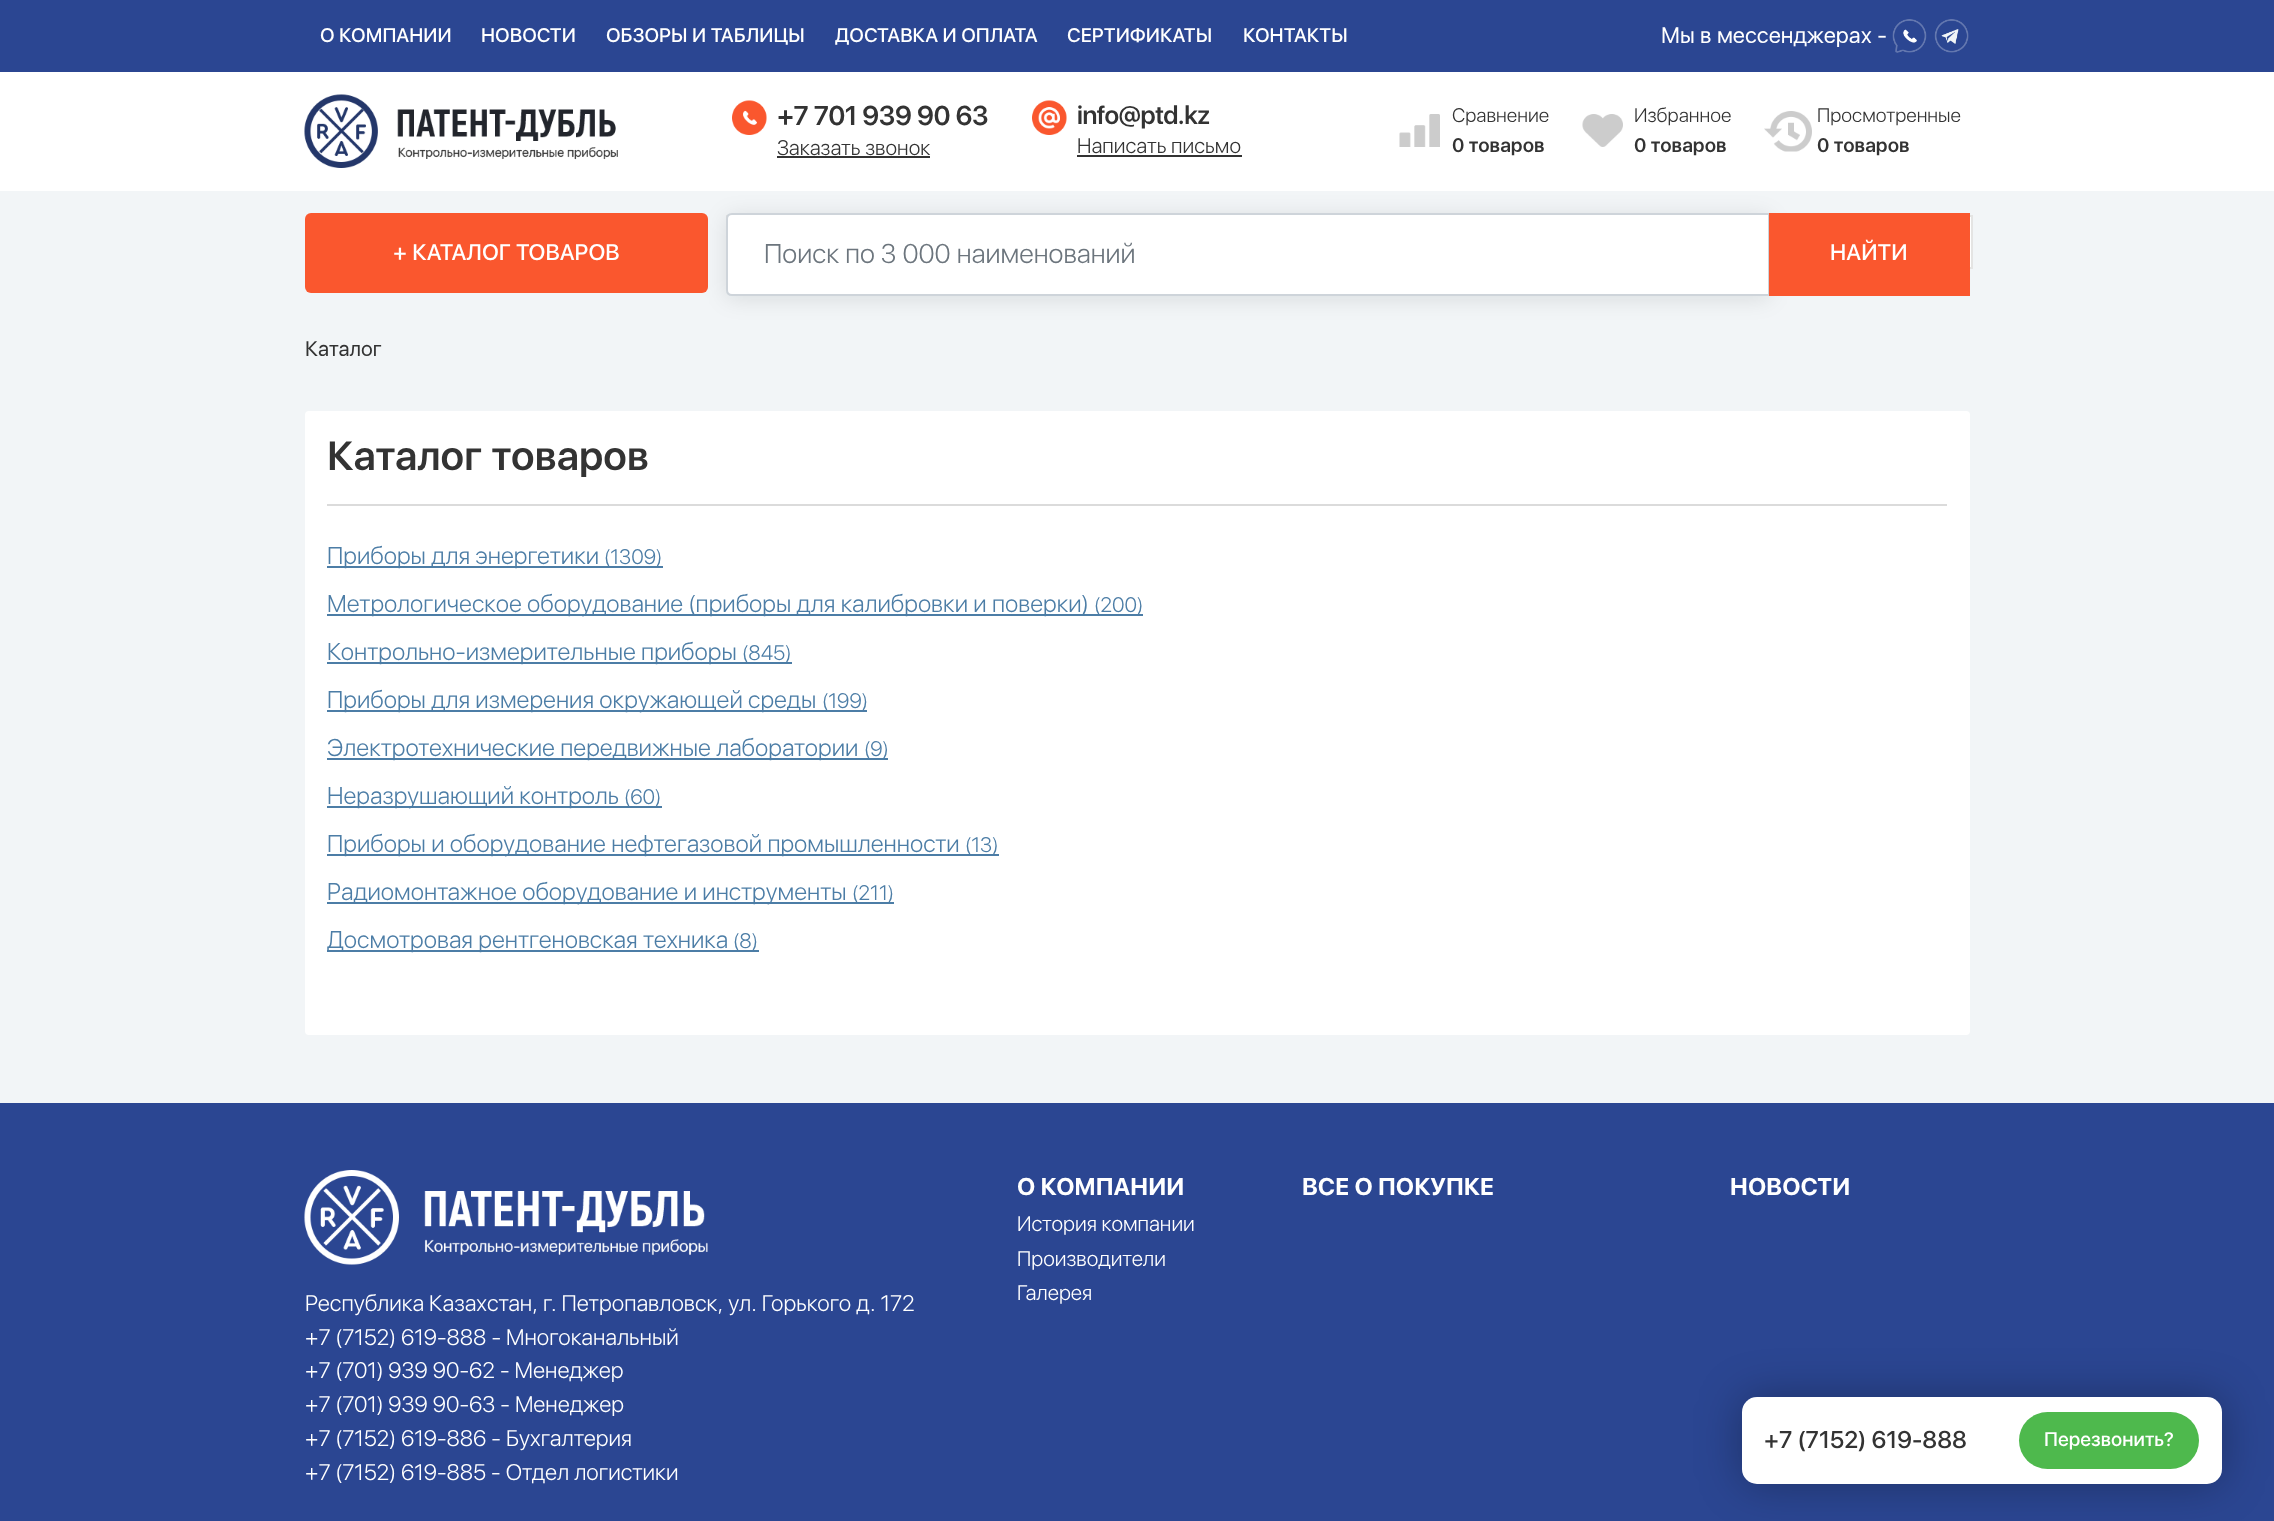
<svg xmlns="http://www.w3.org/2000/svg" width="2274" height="1521">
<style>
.a{font:500 19.5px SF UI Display;fill:#fff}
.b{font:22.5px SF UI Display;fill:#fff}
.c{font:600 27px SF UI Display;letter-spacing:-0.5px;fill:#333}
.d{font:300 21px SF UI Display;fill:#333}
.e{font:600 25.5px SF UI Display;letter-spacing:-0.5px;fill:#333}
.f{font:300 19.5px SF UI Display;fill:#333}
.g{font:600 19.5px SF UI Display;fill:#333}
.h{font:500 22.5px SF UI Display;fill:#fff}
.i{font:300 27px SF UI Display;fill:#6c757d}
.j{font:21px SF UI Display;fill:#333}
.k{font:600 40.5px SF UI Display;fill:#333}
.l{font:300 24px SF UI Display;fill:#4c7da6}
.m{font:300 21px SF UI Display;fill:#4c7da6}
.n{font:bold 24px SF UI Display;fill:#fff}
.o{font:300 21px SF UI Display;fill:#fff}
.p{font:300 22.5px SF UI Display;fill:#fff}
.q{font:500 24px SF UI Display;fill:#333}
</style>
<rect width="100%" height="100%" fill="#fff"/>
<path fill="#2b4692" d="M0 0h2274v72H0z"/>
<image href="1.png" x="1892" y="19" width="35" height="34"/>
<image href="2.png" x="1934" y="19" width="35" height="34"/>
<image href="3.png" x="304" y="94" width="314" height="74"/>
<image href="4.png" x="732" y="100" width="35" height="35"/>
<path fill="#333" d="M777 156h153v2H777z"/>
<image href="5.png" x="1032" y="100" width="35" height="35"/>
<path fill="#333" d="M1077 155h165v2H1077z"/>
<image href="6.png" x="1399" y="114" width="41" height="33"/>
<image href="7.png" x="1582" y="114" width="41" height="33"/>
<image href="8.png" x="1764" y="111" width="48" height="41"/>
<path fill="#f2f5f7" d="M0 191h2274v912H0z"/>
<rect fill="#fa572e" x="305" y="213" width="403" height="80" rx="6"/>
<path fill="#fff" stroke="#e4e4e3" stroke-width="2" d="M727 216h1245v52H727z"/>
<rect fill="#000e0b1a" filter="blur(11px)" x="726" y="216" width="1044" height="83" rx="6"/>
<path fill="#fff" stroke="#ced4da" stroke-width="2" d="M732 214h1037v81h-1037c-3 0-5-2-5-5v-71c0-3 2-5 5-5z"/>
<path fill="#fa572e" d="M1769 213h201v83H1769z"/>
<rect fill="#fff" x="305" y="411" width="1665" height="624" rx="4"/>
<path fill="#dbdbdb" d="M327 504h1620v2H327z"/>
<path fill="#4c7da6" d="M327 566h336v2H327z"/>
<path fill="#4c7da6" d="M327 614h816v2H327z"/>
<path fill="#4c7da6" d="M327 662h465v2H327z"/>
<path fill="#4c7da6" d="M327 710h540v2H327z"/>
<path fill="#4c7da6" d="M327 758h561v2H327z"/>
<path fill="#4c7da6" d="M327 806h335v2H327z"/>
<path fill="#4c7da6" d="M327 854h672v2H327z"/>
<path fill="#4c7da6" d="M327 902h567v2H327z"/>
<path fill="#4c7da6" d="M327 950h432v2H327z"/>
<path fill="#2b4692" d="M0 1103h2274v418H0z"/>
<image href="9.png" x="304" y="1170" width="404" height="95"/>
<rect fill="#0000004d" filter="blur(22.5px)" x="1742" y="1397" width="480" height="87" rx="15"/>
<rect fill="#fff" x="1742" y="1397" width="480" height="87" rx="15"/>
<rect fill="#4eb94d" x="2019" y="1412" width="180" height="57" rx="28.5"/>
<text class="a" x="320" y="42">О КОМПАНИИ</text>
<text class="a" x="481" y="42">НОВОСТИ</text>
<text class="a" x="606" y="42">ОБЗОРЫ И ТАБЛИЦЫ</text>
<text class="a" x="835" y="42">ДОСТАВКА И ОПЛАТА</text>
<text class="a" x="1067" y="42">СЕРТИФИКАТЫ</text>
<text class="a" x="1243" y="42">КОНТАКТЫ</text>
<text class="b" x="1661" y="43">Мы в мессенджерах -</text>
<text class="c" x="777" y="125">+7 701 939 90 63</text>
<text class="d" x="777" y="155">Заказать звонок</text>
<text class="e" x="1077" y="124">info@ptd.kz</text>
<text class="d" x="1077" y="153">Написать письмо</text>
<text class="f" x="1452" y="122">Сравнение</text>
<text class="g" x="1452" y="152">0 товаров</text>
<text class="f" x="1634" y="122">Избранное</text>
<text class="g" x="1634" y="152">0 товаров</text>
<text class="f" x="1817" y="122">Просмотренные</text>
<text class="g" x="1817" y="152">0 товаров</text>
<text class="h" x="393" y="260">+ КАТАЛОГ ТОВАРОВ</text>
<text class="i" x="764" y="263">Поиск по 3 000 наименований</text>
<text class="h" x="1830" y="260">НАЙТИ</text>
<text class="j" x="305" y="356">Каталог</text>
<text class="k" x="327" y="470">Каталог товаров</text>
<text class="l" x="327" y="564">Приборы для энергетики</text>
<text class="m" x="604" y="564">(1309)</text>
<text class="l" x="327" y="612">Метрологическое оборудование (приборы для калибровки и поверки)</text>
<text class="m" x="1094" y="612">(200)</text>
<text class="l" x="327" y="660">Контрольно-измерительные приборы</text>
<text class="m" x="742" y="660">(845)</text>
<text class="l" x="327" y="708">Приборы для измерения окружающей среды</text>
<text class="m" x="822" y="708">(199)</text>
<text class="l" x="327" y="756">Электротехнические передвижные лаборатории</text>
<text class="m" x="864" y="756">(9)</text>
<text class="l" x="327" y="804">Неразрушающий контроль</text>
<text class="m" x="624" y="804">(60)</text>
<text class="l" x="327" y="852">Приборы и оборудование нефтегазовой промышленности</text>
<text class="m" x="965" y="852">(13)</text>
<text class="l" x="327" y="900">Радиомонтажное оборудование и инструменты</text>
<text class="m" x="852" y="900">(211)</text>
<text class="l" x="327" y="948">Досмотровая рентгеновская техника</text>
<text class="m" x="733" y="948">(8)</text>
<text class="n" x="1017" y="1195">О КОМПАНИИ</text>
<text class="o" x="1017" y="1231">История компании</text>
<text class="o" x="1017" y="1266">Производители</text>
<text class="o" x="1017" y="1300">Галерея</text>
<text class="n" x="1302" y="1195">ВСЕ О ПОКУПКЕ</text>
<text class="n" x="1730" y="1195">НОВОСТИ</text>
<text class="p" x="305" y="1311">Республика Казахстан, г. Петропавловск, ул. Горького д. 172</text>
<text class="p" x="305" y="1345">+7 (7152) 619-888 - Многоканальный</text>
<text class="p" x="305" y="1378">+7 (701) 939 90-62 - Менеджер</text>
<text class="p" x="305" y="1412">+7 (701) 939 90-63 - Менеджер</text>
<text class="p" x="305" y="1446">+7 (7152) 619-886 - Бухгалтерия</text>
<text class="p" x="305" y="1480">+7 (7152) 619-885 - Отдел логистики</text>
<text class="q" x="1764" y="1448">+7 (7152) 619-888</text>
<text class="a" x="2044" y="1446">Перезвонить?</text>
</svg>
